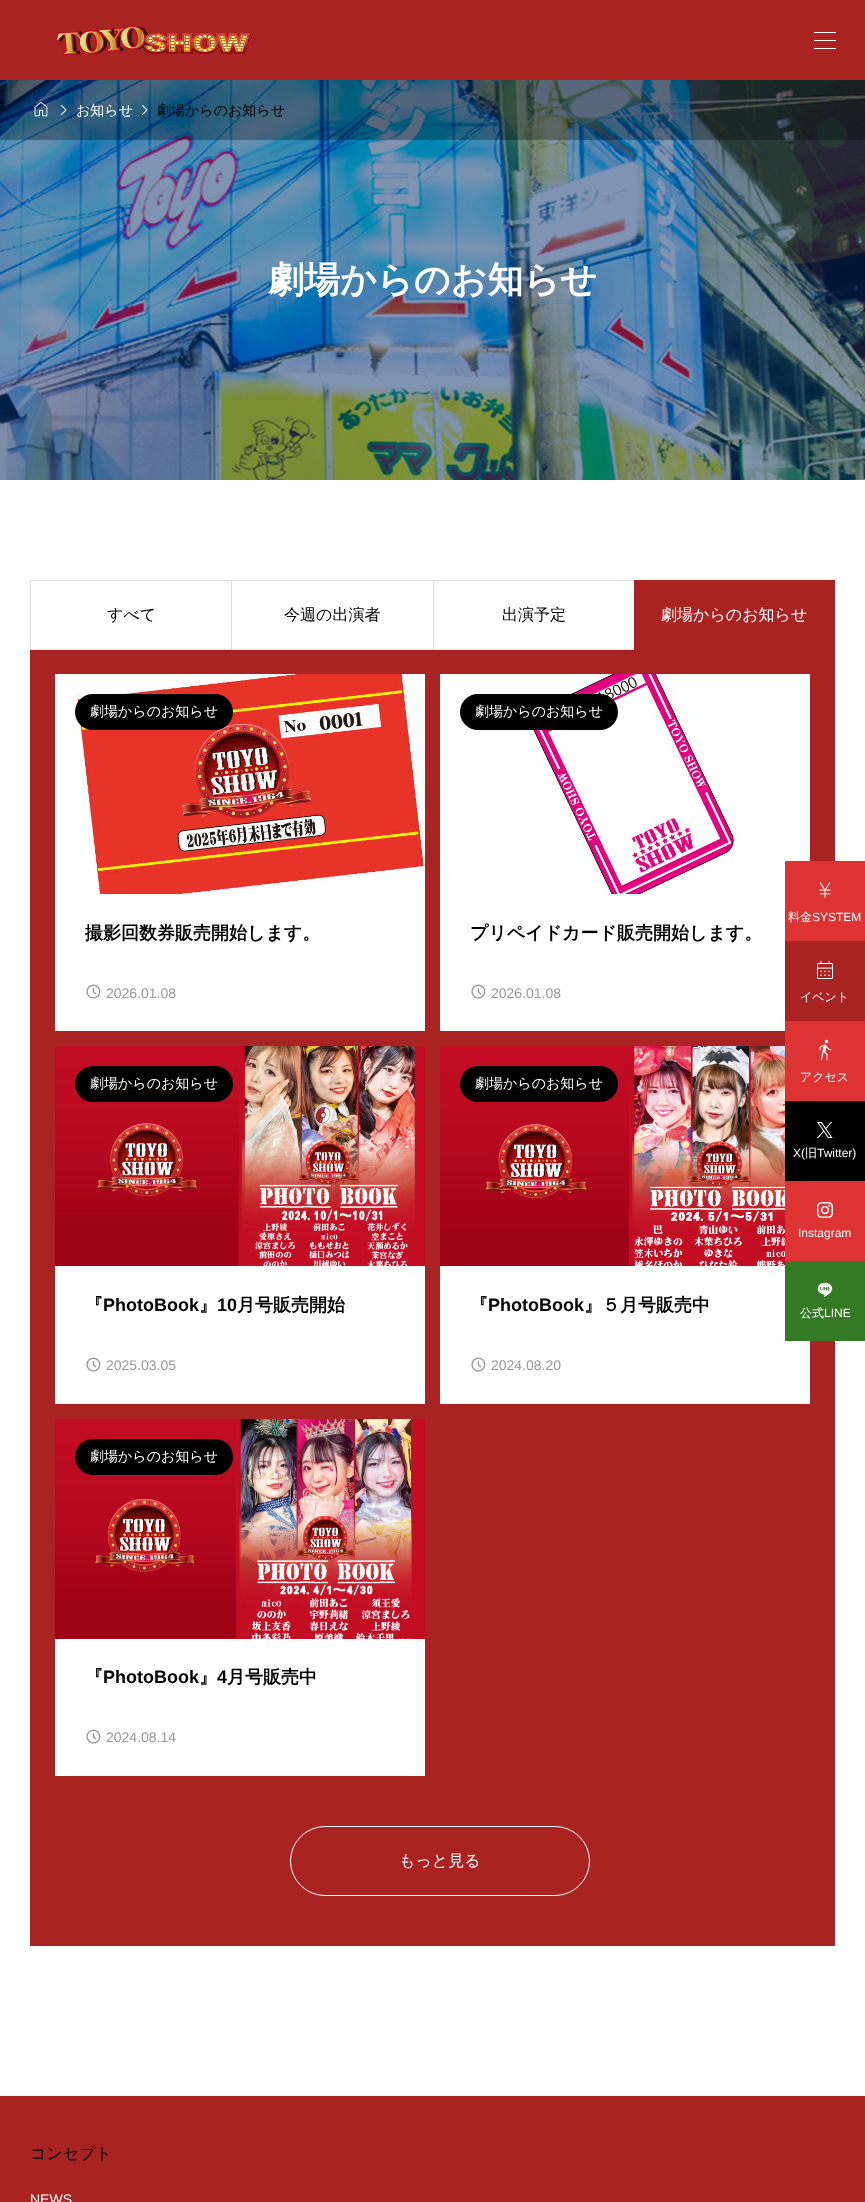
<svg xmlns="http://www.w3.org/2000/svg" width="865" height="2202">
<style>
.a{font:500 14px WenQuanYi Zen Hei;fill:#fff}
.b{font:500 14px WenQuanYi Zen Hei;fill:#000}
.c{font:bold 36px WenQuanYi Zen Hei;fill:#fff}
.d{font:500 16px WenQuanYi Zen Hei;fill:#000}
.e{font:500 16px WenQuanYi Zen Hei;fill:#fff}
.f{font:bold 18px WenQuanYi Zen Hei;fill:#000}
.g{font:14px Liberation Sans;fill:#999}
.h{font:bold 18px Liberation Sans;fill:#000}
.i{font:14px Liberation Sans;fill:#fff}
.j{font:500 12px WenQuanYi Zen Hei;fill:#fff}
.k{font:12px Liberation Sans;fill:#fff}
</style>
<rect width="100%" height="100%" fill="#fff"/>
<path fill="#aa2323" d="M0 0h865v80H0z"/>
<image href="1.png" x="55" y="26" width="196" height="29"/>
<path fill="#fff" d="M814 32h22v1H814z"/>
<path fill="#fff" d="M814 40h22v1H814z"/>
<path fill="#fff" d="M814 48h22v1H814z"/>
<image href="5.png" x="0" y="80" width="865" height="400"/>
<path fill="#0000004d" d="M0 80h865v60H0z"/>
<image href="2.png" x="34" y="102" width="14" height="15"/>
<image href="3.png" x="60" y="104" width="7" height="12"/>
<image href="4.png" x="141" y="104" width="7" height="12"/>
<path fill="#ddd" d="M30 580h604v1H30z"/>
<path fill="#ddd" d="M30 649h604v1H30z"/>
<path fill="#ddd" d="M30 580h1v70H30z"/>
<path fill="#ddd" d="M231 580h1v70H231z"/>
<path fill="#ddd" d="M433 580h1v70H433z"/>
<path fill="#aa2323" d="M634 580h201v70H634z"/>
<path fill="#aa2323" d="M30 650h805v1296H30z"/>
<image href="6.png" x="55" y="674" width="370" height="220"/>
<rect fill="#000" x="75" y="694" width="158" height="36" rx="18"/>
<path fill="#fff" d="M55 894h370v137H55z"/>
<image href="7.png" x="86" y="984" width="15" height="15"/>
<image href="8.png" x="440" y="674" width="370" height="220"/>
<rect fill="#000" x="460" y="694" width="158" height="36" rx="18"/>
<path fill="#fff" d="M440 894h345v137H440z"/>
<image href="7.png" x="471" y="984" width="15" height="15"/>
<image href="9.png" x="55" y="1046" width="370" height="220"/>
<rect fill="#000" x="75" y="1066" width="158" height="36" rx="18"/>
<path fill="#fff" d="M55 1266h370v138H55z"/>
<image href="7.png" x="86" y="1357" width="15" height="15"/>
<image href="10.png" x="440" y="1046" width="345" height="220"/>
<rect fill="#000" x="460" y="1066" width="158" height="36" rx="18"/>
<path fill="#fff" d="M440 1266h370v138H440z"/>
<image href="7.png" x="471" y="1357" width="15" height="15"/>
<image href="11.png" x="55" y="1419" width="370" height="220"/>
<rect fill="#000" x="75" y="1439" width="158" height="36" rx="18"/>
<path fill="#fff" d="M55 1639h370v137H55z"/>
<image href="7.png" x="86" y="1729" width="15" height="15"/>
<rect fill="none" stroke="#fff" x="290.5" y="1826.5" width="299" height="69" rx="34.5"/>
<path fill="#aa2323" d="M0 2096h865v106H0z"/>
<path fill="#d33" d="M785 861h80v80H785z"/>
<image href="12.png" x="819" y="882" width="12" height="16"/>
<path fill="#aa2323" d="M835 941h30v80H835z"/>
<image href="13.png" x="817" y="960" width="16" height="19"/>
<path fill="#d33" d="M785 1021h80v80H785z"/>
<image href="14.png" x="819" y="1039" width="13" height="22"/>
<path fill="#000" d="M785 1101h80v80H785z"/>
<image href="15.png" x="817" y="1122" width="16" height="16"/>
<path fill="#d33" d="M785 1181h80v80H785z"/>
<image href="16.png" x="817" y="1202" width="16" height="16"/>
<path fill="#347a24" d="M785 1261h80v80H785z"/>
<image href="17.png" x="817" y="1282" width="16" height="15"/>
<text class="a" x="76" y="115">お知らせ</text>
<text class="b" x="157" y="115">劇場からのお知らせ</text>
<text class="c" x="268" y="292">劇場からのお知らせ</text>
<text class="d" x="107" y="620">すべて</text>
<text class="d" x="284" y="620">今週の出演者</text>
<text class="d" x="502" y="620">出演予定</text>
<text class="e" x="661" y="620">劇場からのお知らせ</text>
<text class="a" x="90" y="716">劇場からのお知らせ</text>
<text class="f" x="85" y="939">撮影回数券販売開始します。</text>
<text class="g" x="106" y="998">2026.01.08</text>
<text class="a" x="475" y="716">劇場からのお知らせ</text>
<text class="f" x="470" y="939">プリペイドカード販売開始します。</text>
<text class="g" x="491" y="998">2026.01.08</text>
<text class="a" x="90" y="1088">劇場からのお知らせ</text>
<text class="f" x="85" y="1311">『</text>
<text class="h" x="103" y="1311">PhotoBook</text>
<text class="f" x="199" y="1311">』</text>
<text class="h" x="217" y="1311">10</text>
<text class="f" x="237" y="1311">月号販売開始</text>
<text class="g" x="106" y="1370">2025.03.05</text>
<text class="a" x="475" y="1088">劇場からのお知らせ</text>
<text class="f" x="470" y="1311">『</text>
<text class="h" x="488" y="1311">PhotoBook</text>
<text class="f" x="584" y="1311">』５月号販売中</text>
<text class="g" x="491" y="1370">2024.08.20</text>
<text class="a" x="90" y="1461">劇場からのお知らせ</text>
<text class="f" x="85" y="1683">『</text>
<text class="h" x="103" y="1683">PhotoBook</text>
<text class="f" x="199" y="1683">』</text>
<text class="h" x="217" y="1683">4</text>
<text class="f" x="227" y="1683">月号販売中</text>
<text class="g" x="106" y="1742">2024.08.14</text>
<text class="e" x="399" y="1866">もっと見る</text>
<text class="d" x="30" y="2159">コンセプト</text>
<text class="i" x="30" y="2204">NEWS</text>
<text class="j" x="788" y="921">料金</text>
<text class="k" x="812" y="921">SYSTEM</text>
<text class="j" x="800" y="1001">イベント</text>
<text class="j" x="800" y="1081">アクセス</text>
<text class="k" x="793" y="1157">X(</text>
<text class="j" x="805" y="1157">旧</text>
<text class="k" x="817" y="1157">Twitter)</text>
<text class="k" x="798" y="1237">Instagram</text>
<text class="j" x="800" y="1317">公式</text>
<text class="k" x="824" y="1317">LINE</text>
</svg>
